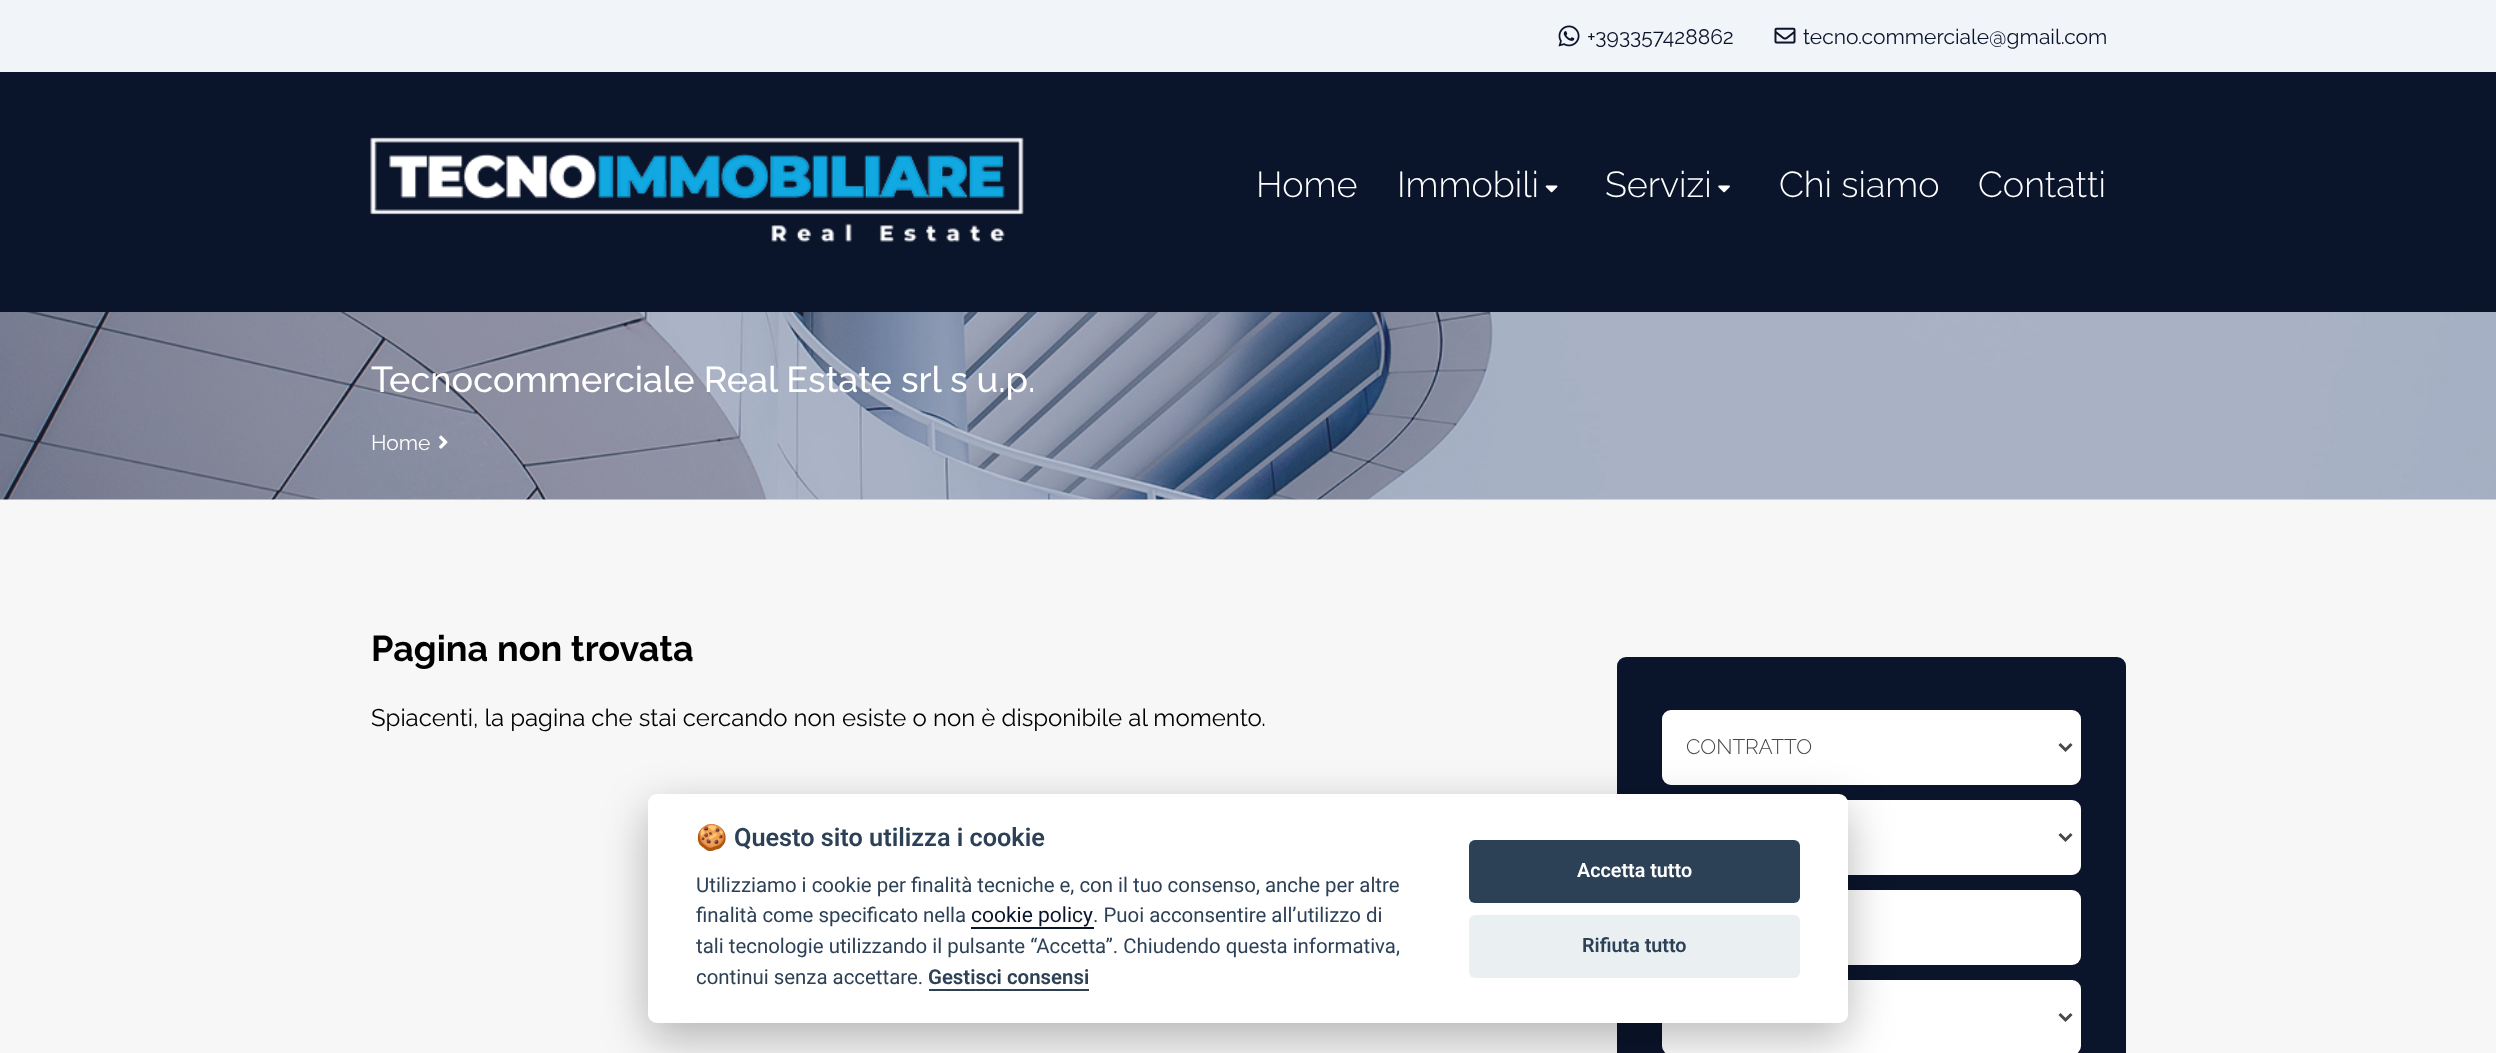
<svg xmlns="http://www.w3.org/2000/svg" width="2496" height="1053">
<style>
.a{font:21px Raleway;fill:#0a142b}
.b{font:300 36px Raleway;fill:#fff}
.c{font:500 36px Raleway;fill:#fff}
.d{font:21px Raleway;fill:#fff}
.e{font:bold 36px Raleway;fill:#000}
.f{font:24px Raleway;fill:#000}
.g{font:300 21px Raleway;fill:#484848}
.h{font:bold 25.25px Noto Color Emoji;fill:#2d4156}
.i{font:600 25.25px Roboto;fill:#2d4156}
.j{font:20.4px Roboto;fill:#2d4156}
.k{font:21px Roboto;fill:#0a142b}
.l{font:600 20.4px Roboto;fill:#2d4156}
.m{font:600 19.75px Roboto;fill:#fff}
.n{font:600 19.75px Roboto;fill:#2d4156}
</style>
<rect width="100%" height="100%" fill="#f7f7f7"/>
<path fill="#f1f4f8" d="M0 0h2496v72H0z"/>
<image href="1.png" x="1558" y="25" width="22" height="22"/>
<image href="2.png" x="1774" y="27" width="22" height="17"/>
<path fill="#0a142b" d="M0 72h2496v240H0z"/>
<image href="3.png" x="370" y="137" width="654" height="105"/>
<image href="4.png" x="1545" y="185" width="13" height="8"/>
<image href="5.png" x="1718" y="185" width="12" height="8"/>
<image href="6.png" x="0" y="312" width="2496" height="188"/>
<image href="7.png" x="439" y="435" width="9" height="14"/>
<rect fill="#0a142b" x="1617" y="657" width="509" height="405" rx="9"/>
<rect fill="#fff" stroke="#fff" stroke-width="3" x="1663.5" y="711.5" width="416" height="72" rx="7.5"/>
<path fill="none" stroke="#484848" stroke-width="3" d="M2059.5 744l6 6l6-6"/>
<rect fill="#fff" stroke="#fff" stroke-width="3" x="1663.5" y="801.5" width="416" height="72" rx="7.5"/>
<path fill="none" stroke="#484848" stroke-width="3" d="M2059.5 834l6 6l6-6"/>
<rect fill="#fff" x="1662" y="890" width="419" height="75" rx="9"/>
<rect fill="#fff" stroke="#fff" stroke-width="3" x="1663.5" y="981.5" width="416" height="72" rx="7.5"/>
<path fill="none" stroke="#484848" stroke-width="3" d="M2059.5 1014l6 6l6-6"/>
<rect fill="#02020347" filter="blur(22.5px)" x="648" y="809" width="1200" height="229" rx="9"/>
<rect fill="#fff" x="648" y="794" width="1200" height="229" rx="9"/>
<path fill="#0a142b" d="M971 927h123v2H971z"/>
<path fill="#2d4156" d="M929 989h160v2H929z"/>
<rect fill="#2d4156" x="1469" y="840" width="331" height="63" rx="6"/>
<rect fill="#eaeff2" x="1469" y="915" width="331" height="63" rx="6"/>
<text class="a" x="1587" y="44">+393357428862</text>
<text class="a" x="1803" y="44">tecno.commerciale@gmail.com</text>
<text class="b" x="1256" y="197">Home</text>
<text class="b" x="1397" y="197">Immobili</text>
<text class="b" x="1605" y="197">Servizi</text>
<text class="b" x="1779" y="197">Chi siamo</text>
<text class="b" x="1978" y="197">Contatti</text>
<text class="c" x="371" y="392">Tecnocommerciale Real Estate srl s u.p.</text>
<text class="d" x="371" y="450">Home</text>
<text class="e" x="371" y="661">Pagina non trovata</text>
<text class="f" x="371" y="726">Spiacenti, la pagina che stai cercando non esiste o non è disponibile al momento.</text>
<text class="g" x="1686" y="754">CONTRATTO</text>
<text class="h" x="696" y="846">🍪</text>
<text class="i" x="734" y="846">Questo sito utilizza i cookie</text>
<text class="j" x="696" y="892">Utilizziamo i cookie per finalità tecniche e, con il tuo consenso, anche per altre</text>
<text class="j" x="696" y="922">finalità come specificato nella</text>
<text class="k" x="971" y="922">cookie policy</text>
<text class="j" x="1093" y="922">. Puoi acconsentire all’utilizzo di</text>
<text class="j" x="696" y="953">tali tecnologie utilizzando il pulsante “Accetta”. Chiudendo questa informativa,</text>
<text class="j" x="696" y="984">continui senza accettare.</text>
<text class="l" x="928" y="984">Gestisci consensi</text>
<text class="m" x="1577" y="877">Accetta tutto</text>
<text class="n" x="1582" y="952">Rifiuta tutto</text>
</svg>
